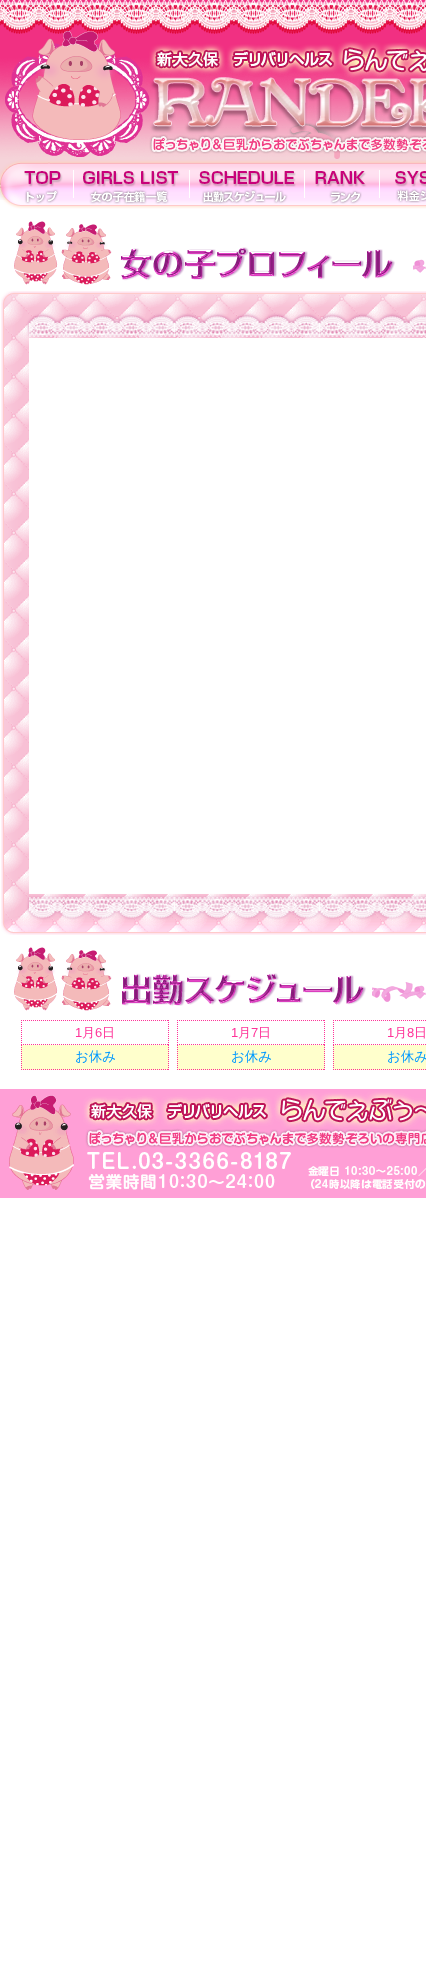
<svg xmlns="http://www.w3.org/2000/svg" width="426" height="1966">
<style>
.a{font:13px Liberation Sans;fill:#f39}
.b{font:500 13px WenQuanYi Zen Hei;fill:#f39}
.c{font:500 13.5px WenQuanYi Zen Hei;fill:#09f}
</style>
<rect width="100%" height="100%" fill="#fff"/>
<image href="1.png" x="0" y="0" width="426" height="200"/>
<image href="2.png" x="0" y="31" width="426" height="178"/>
<image href="3.png" x="14" y="221" width="412" height="64"/>
<image href="4.png" x="1" y="291" width="425" height="52"/>
<image href="5.png" x="1" y="343" width="28" height="545"/>
<image href="6.png" x="1" y="888" width="425" height="47"/>
<image href="7.png" x="14" y="947" width="412" height="64"/>
<path fill="none" stroke="#f39" stroke-dasharray="1 1" d="M21 1020.5h148"/>
<path fill="none" stroke="#f39" stroke-dasharray="1 1" d="M168.5 1020v25"/>
<path fill="none" stroke="#f39" stroke-dasharray="1 1" d="M21 1044.5h148"/>
<path fill="none" stroke="#f39" stroke-dasharray="1 1" d="M21.5 1020v25"/>
<path fill="#ffc" d="M21 1045h148v25H21z"/>
<path fill="none" stroke="#f39" stroke-dasharray="1 1" d="M168.5 1045v25"/>
<path fill="none" stroke="#f39" stroke-dasharray="1 1" d="M21 1069.5h148"/>
<path fill="none" stroke="#f39" stroke-dasharray="1 1" d="M21.5 1045v25"/>
<path fill="none" stroke="#f39" stroke-dasharray="1 1" d="M177 1020.5h148"/>
<path fill="none" stroke="#f39" stroke-dasharray="1 1" d="M324.5 1020v25"/>
<path fill="none" stroke="#f39" stroke-dasharray="1 1" d="M177 1044.5h148"/>
<path fill="none" stroke="#f39" stroke-dasharray="1 1" d="M177.5 1020v25"/>
<path fill="#ffc" d="M177 1045h148v25H177z"/>
<path fill="none" stroke="#f39" stroke-dasharray="1 1" d="M324.5 1045v25"/>
<path fill="none" stroke="#f39" stroke-dasharray="1 1" d="M177 1069.5h148"/>
<path fill="none" stroke="#f39" stroke-dasharray="1 1" d="M177.5 1045v25"/>
<path fill="none" stroke="#f39" stroke-dasharray="1 1" d="M333 1020.5h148"/>
<path fill="none" stroke="#f39" stroke-dasharray="1 1" d="M333 1044.5h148"/>
<path fill="none" stroke="#f39" stroke-dasharray="1 1" d="M333.5 1020v25"/>
<path fill="#ffc" d="M333 1045h93v25H333z"/>
<path fill="none" stroke="#f39" stroke-dasharray="1 1" d="M333 1069.5h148"/>
<path fill="none" stroke="#f39" stroke-dasharray="1 1" d="M333.5 1045v25"/>
<image href="8.png" x="0" y="1089" width="426" height="109"/>
<text class="a" x="75" y="1037">1</text>
<text class="b" x="82" y="1037">月</text>
<text class="a" x="95" y="1037">6</text>
<text class="b" x="102" y="1037">日</text>
<text class="c" x="75" y="1061">お休み</text>
<text class="a" x="231" y="1037">1</text>
<text class="b" x="238" y="1037">月</text>
<text class="a" x="251" y="1037">7</text>
<text class="b" x="258" y="1037">日</text>
<text class="c" x="231" y="1061">お休み</text>
<text class="a" x="387" y="1037">1</text>
<text class="b" x="394" y="1037">月</text>
<text class="a" x="407" y="1037">8</text>
<text class="b" x="414" y="1037">日</text>
<text class="c" x="387" y="1061">お休み</text>
</svg>
